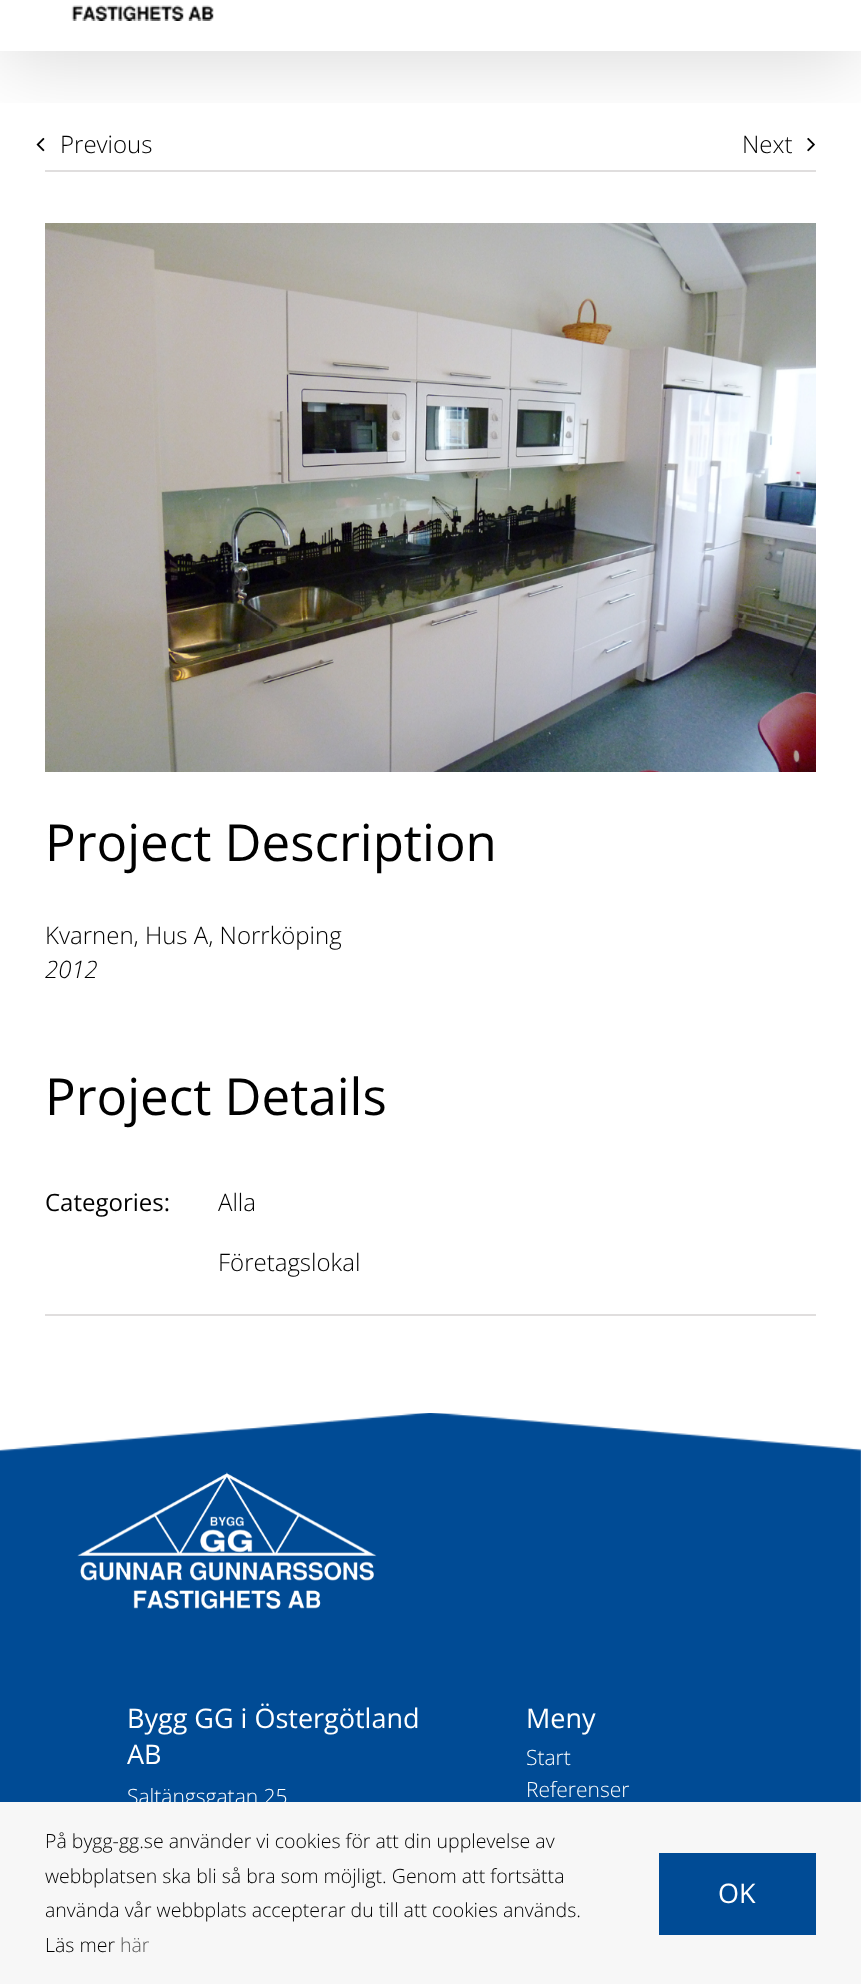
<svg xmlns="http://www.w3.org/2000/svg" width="861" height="1984">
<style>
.a{font:300 24px Open Sans;fill:#000}
.b{font:51px Open Sans;fill:#000}
.c{font:italic 300 24px Open Sans;fill:#000}
.d{font:24px Open Sans;fill:#000}
.e{font:27px Open Sans;fill:#fff}
.f{font:300 21px Open Sans;fill:#fff}
.g{font:300 19.5px Open Sans;fill:#000}
.h{font:300 19.5px Open Sans;fill:#595959}
</style>
<defs>
<clipPath id="clip1"><path d="M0 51h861v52H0z"/></clipPath>
</defs>
<rect width="100%" height="100%" fill="#fff"/>
<path fill="#e0dede" d="M45 170h771v2H45z"/>
<image href="2.png" x="36" y="137" width="9" height="15"/>
<image href="3.png" x="807" y="137" width="8" height="15"/>
<g clip-path="url(#clip1)">
<path fill="#00000024" filter="blur(37.5px)" d="M3 -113h855v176H3z"/>
</g>
<image href="1.png" x="71" y="5" width="143" height="16"/>
<image href="4.png" x="45" y="223" width="771" height="549"/>
<path fill="#e0dede" d="M45 1314h771v2H45z"/>
<image href="5.png" x="0" y="1413" width="861" height="389"/>
<image href="6.png" x="77" y="1472" width="300" height="137"/>
<text class="a" x="60" y="153">Previous</text>
<text class="a" x="742" y="153">Next</text>
<text class="b" x="45" y="861">Project Description</text>
<text class="a" x="45" y="944">Kvarnen, Hus A, Norrköping</text>
<text class="c" x="45" y="978">2012</text>
<text class="b" x="45" y="1115">Project Details</text>
<text class="d" x="45" y="1211">Categories:</text>
<text class="a" x="218" y="1211">Alla</text>
<text class="a" x="218" y="1271">Företagslokal</text>
<text class="e" x="127" y="1728">Bygg GG i Östergötland</text>
<text class="e" x="127" y="1764">AB</text>
<text class="f" x="127" y="1804">Saltängsgatan 25</text>
<text class="e" x="526" y="1728">Meny</text>
<text class="f" x="526" y="1765">Start</text>
<text class="f" x="526" y="1797">Referenser</text>
<path fill="#f7f7f7" d="M0 1802h861v182H0z"/>
<text class="g" x="45" y="1848">På bygg-gg.se använder vi cookies för att din upplevelse av</text>
<text class="g" x="45" y="1883">webbplatsen ska bli så bra som möjligt. Genom att fortsätta</text>
<text class="g" x="45" y="1917">använda vår webbplats accepterar du till att cookies används.</text>
<text class="g" x="45" y="1952">Läs mer</text>
<text class="h" x="120" y="1952">här</text>
<path fill="#004b95" d="M659 1853h157v82H659z"/>
<text class="e" x="718" y="1903">OK</text>
</svg>
